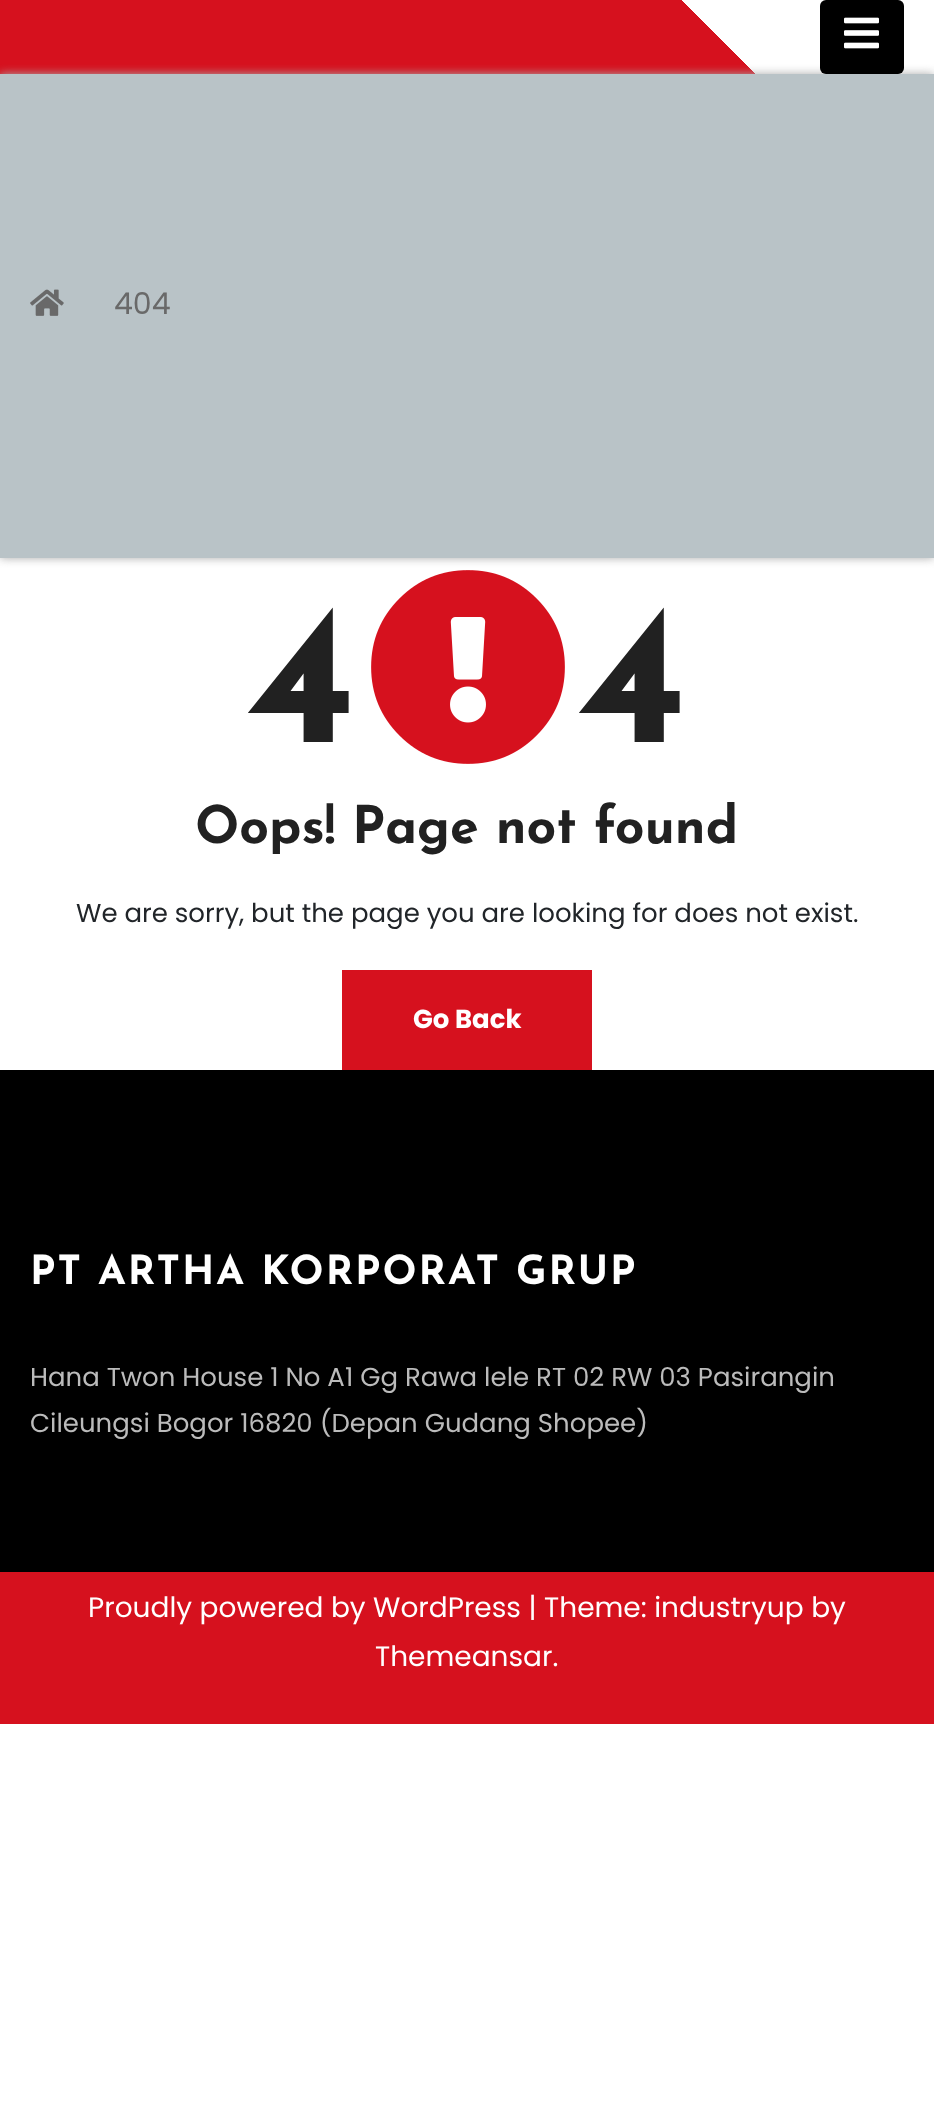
<svg xmlns="http://www.w3.org/2000/svg" width="934" height="2101">
<style>
.a{font:30px Poppins;fill:#696969}
.b{font:bold 200px Josefin Sans;fill:#212121}
.c{font:bold 52px Josefin Sans;fill:#212121}
.d{font:26px Poppins;fill:#212529}
.e{font:bold 26px Poppins;fill:#fff}
.f{font:bold 40px Josefin Sans;letter-spacing:2px;fill:#fff}
.g{font:26px Poppins;fill:#bbb}
.h{font:28px Poppins;fill:#fff}
</style>
<defs>
<linearGradient id="g1" gradientUnits="userSpaceOnUse" x1="215" y1="289" x2="719" y2="-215"><stop offset="0.75" stop-color="#d6111e"/><stop offset="0.75" stop-color="#fff"/></linearGradient>
</defs>
<rect width="100%" height="100%" fill="#fff"/>
<path fill="url(#g1)" d="M0 0h756v74H0z"/>
<path fill="#aaa" filter="blur(5px)" d="M0 74h934v484H0z"/>
<rect fill="#000" x="820" width="84" height="74" rx="6"/>
<image href="1.png" x="844" y="17" width="35" height="32"/>
<path fill="#b9c3c7" d="M0 74h934v484H0z"/>
<image href="2.png" x="30" y="289" width="34" height="27"/>
<image href="3.png" x="371" y="570" width="194" height="194"/>
<path fill="#d6111e" d="M342 970h250v100H342z"/>
<path fill="#000" d="M0 1070h934v502H0z"/>
<path fill="#d6111e" d="M0 1572h934v152H0z"/>
<text class="a" x="114" y="314">404</text>
<text class="b" x="246" y="742">4</text>
<text class="b" x="577" y="742">4</text>
<text class="c" x="195" y="843">Oops! Page not found</text>
<text class="d" x="76" y="922">We are sorry, but the page you are looking for does not exist.</text>
<text class="e" x="413" y="1028">Go Back</text>
<text class="f" x="30" y="1284">PT ARTHA KORPORAT GRUP</text>
<text class="g" x="30" y="1386">Hana Twon House 1 No A1 Gg Rawa lele RT 02 RW 03 Pasirangin</text>
<text class="g" x="30" y="1432">Cileungsi Bogor 16820 (Depan Gudang Shopee)</text>
<text class="h" x="88" y="1617">Proudly powered by WordPress | Theme: industryup by</text>
<text class="h" x="375" y="1666">Themeansar.</text>
</svg>
